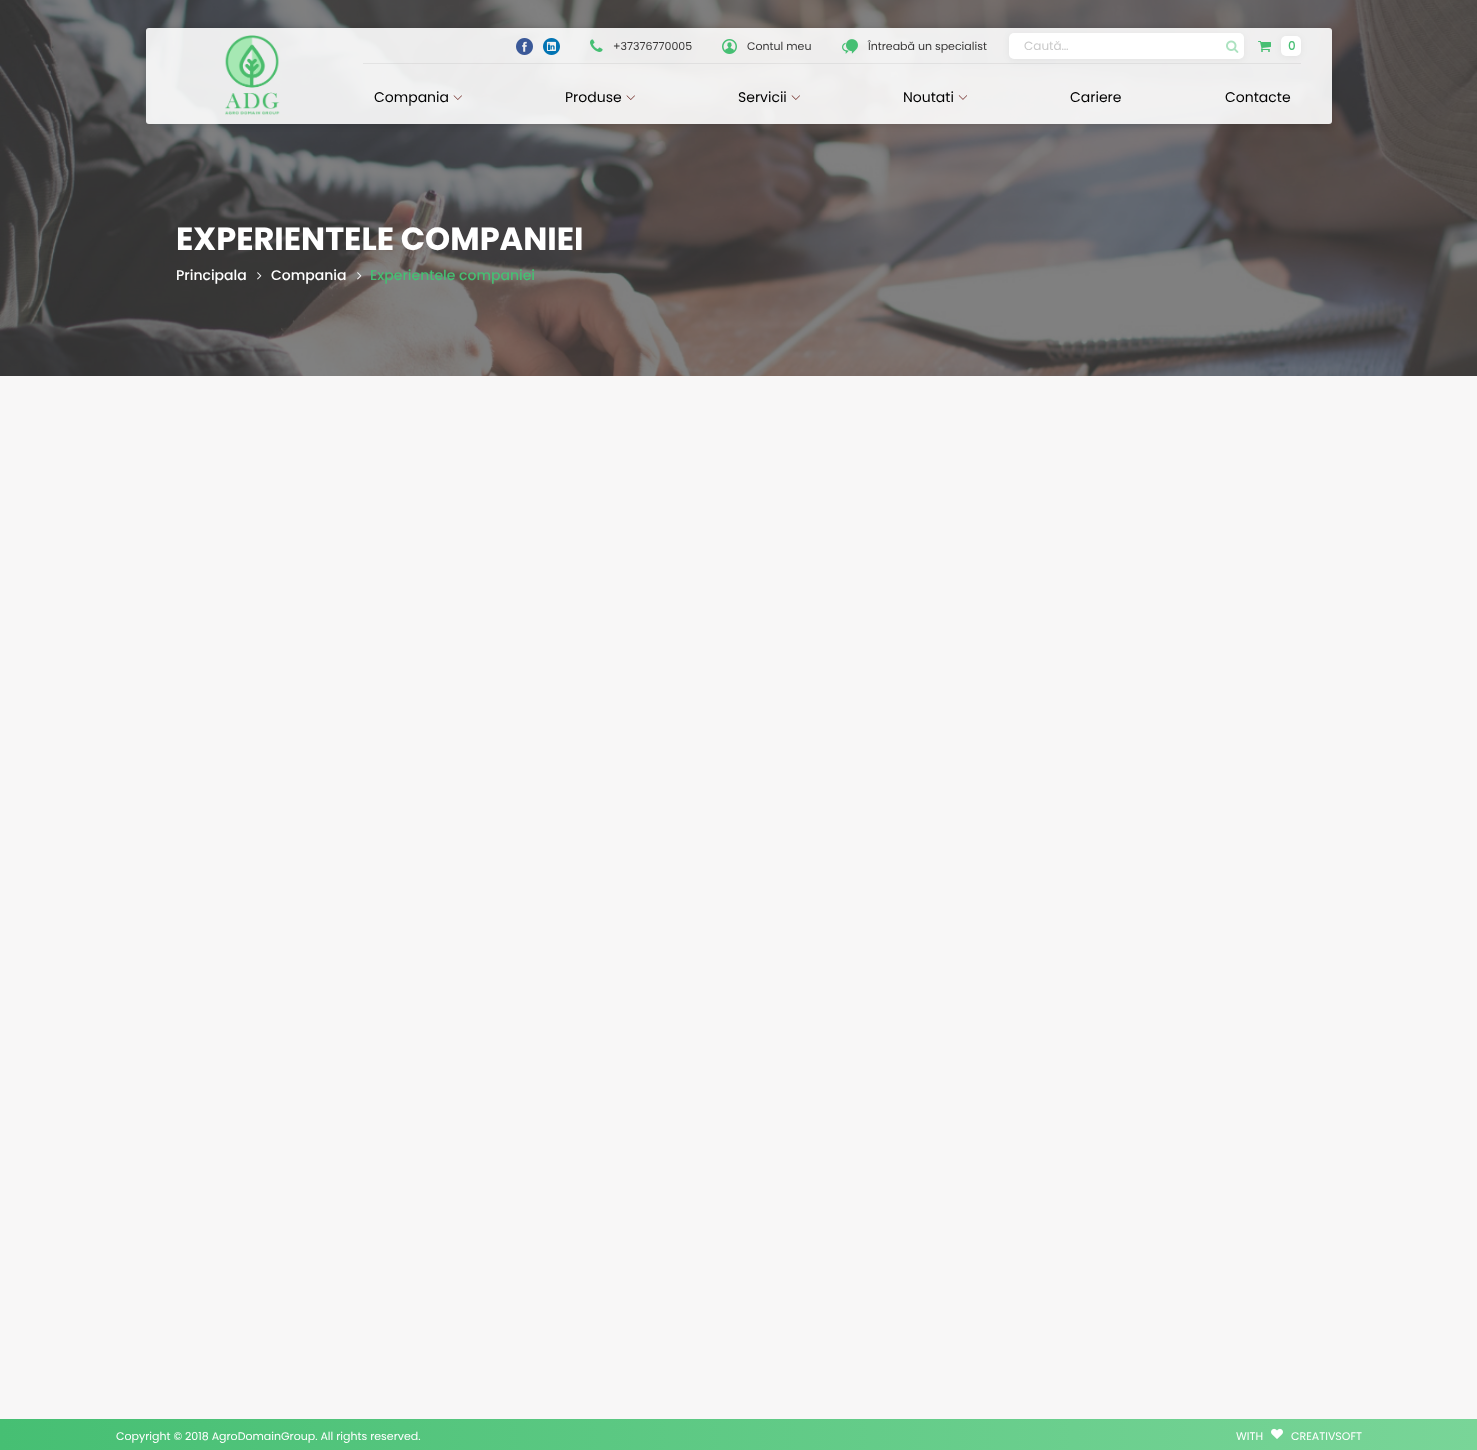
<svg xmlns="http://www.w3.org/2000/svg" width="1477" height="1450">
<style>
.a{font:11px Poppins;fill:#383737}
.b{font:12px Poppins;fill:#c9c9c9}
.c{font:500 12px Poppins;fill:#46bf73}
.d{font:14px Poppins;fill:#000}
.e{font:bold 32px Poppins;fill:#fff}
.f{font:500 14px Poppins;fill:#fff}
.g{font:500 14px Poppins;fill:#46bf73}
.h{font:11px Poppins;fill:#fff}
</style>
<defs>
<clipPath id="clip1"><path d="M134 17h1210v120h-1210zm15 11h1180c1.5 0 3 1.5 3 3v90c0 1.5-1.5 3-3 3h-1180c-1.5 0-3-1.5-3-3v-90c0-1.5 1.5-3 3-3z" clip-rule="evenodd"/></clipPath>
<linearGradient id="g1" gradientUnits="userSpaceOnUse" x1="0" y1="1435" x2="1477" y2="1435"><stop offset="0" stop-color="#46bf73"/><stop offset="1" stop-color="#79d598"/></linearGradient>
</defs>
<rect width="100%" height="100%" fill="#f8f7f7"/>
<image href="13.png" x="0" y="0" width="1477" height="376"/>
<g clip-path="url(#clip1)">
<rect fill="#00000026" filter="blur(3.5px)" x="146" y="29" width="1186" height="96" rx="3"/>
</g>
<rect fill="#ffffffe6" x="146" y="28" width="1186" height="96" rx="3"/>
<image href="1.png" x="225" y="35" width="55" height="80"/>
<image href="2.png" x="516" y="38" width="17" height="17"/>
<image href="3.png" x="543" y="38" width="17" height="17"/>
<image href="4.png" x="590" y="39" width="13" height="13"/>
<image href="5.png" x="722" y="39" width="15" height="15"/>
<image href="6.png" x="842" y="39" width="16" height="15"/>
<rect fill="#0000000d" filter="blur(3.5px)" x="1009" y="34" width="235" height="26" rx="5"/>
<rect fill="#fff" x="1009" y="33" width="235" height="26" rx="5"/>
<image href="7.png" x="1226" y="40" width="13" height="13"/>
<image href="8.png" x="1258" y="41" width="13" height="11"/>
<rect fill="#0000000d" filter="blur(3.5px)" x="1281" y="37" width="20" height="20" rx="5"/>
<rect fill="#fff" x="1281" y="36" width="20" height="20" rx="5"/>
<path fill="#7070701c" d="M363 63h938v1H363z"/>
<image href="9.png" x="453" y="95" width="9" height="5"/>
<image href="10.png" x="626" y="95" width="9" height="5"/>
<image href="11.png" x="791" y="95" width="9" height="5"/>
<image href="12.png" x="958" y="95" width="9" height="5"/>
<image href="14.png" x="257" y="272" width="5" height="8"/>
<image href="15.png" x="357" y="272" width="5" height="8"/>
<path fill="url(#g1)" d="M0 1419h1477v31H0z"/>
<image href="16.png" x="1271" y="1428" width="12" height="11"/>
<text class="a" x="613" y="50">+37376770005</text>
<text class="a" x="747" y="50">Contul meu</text>
<text class="a" x="868" y="50">Întreabă un specialist</text>
<text class="b" x="1024" y="50">Caută…</text>
<text class="c" x="1288" y="50">0</text>
<text class="d" x="374" y="102">Compania</text>
<text class="d" x="565" y="102">Produse</text>
<text class="d" x="738" y="102">Servicii</text>
<text class="d" x="903" y="102">Noutati</text>
<text class="d" x="1070" y="102">Cariere</text>
<text class="d" x="1225" y="102">Contacte</text>
<text class="e" x="176" y="250">EXPERIENTELE COMPANIEI</text>
<text class="f" x="176" y="280">Principala</text>
<text class="f" x="271" y="280">Compania</text>
<text class="g" x="370" y="280">Experientele companiei</text>
<text class="h" x="116" y="1440">Copyright © 2018 AgroDomainGroup. All rights reserved.</text>
<text class="h" x="1236" y="1440">WITH</text>
<text class="h" x="1291" y="1440">CREATIVSOFT</text>
</svg>
